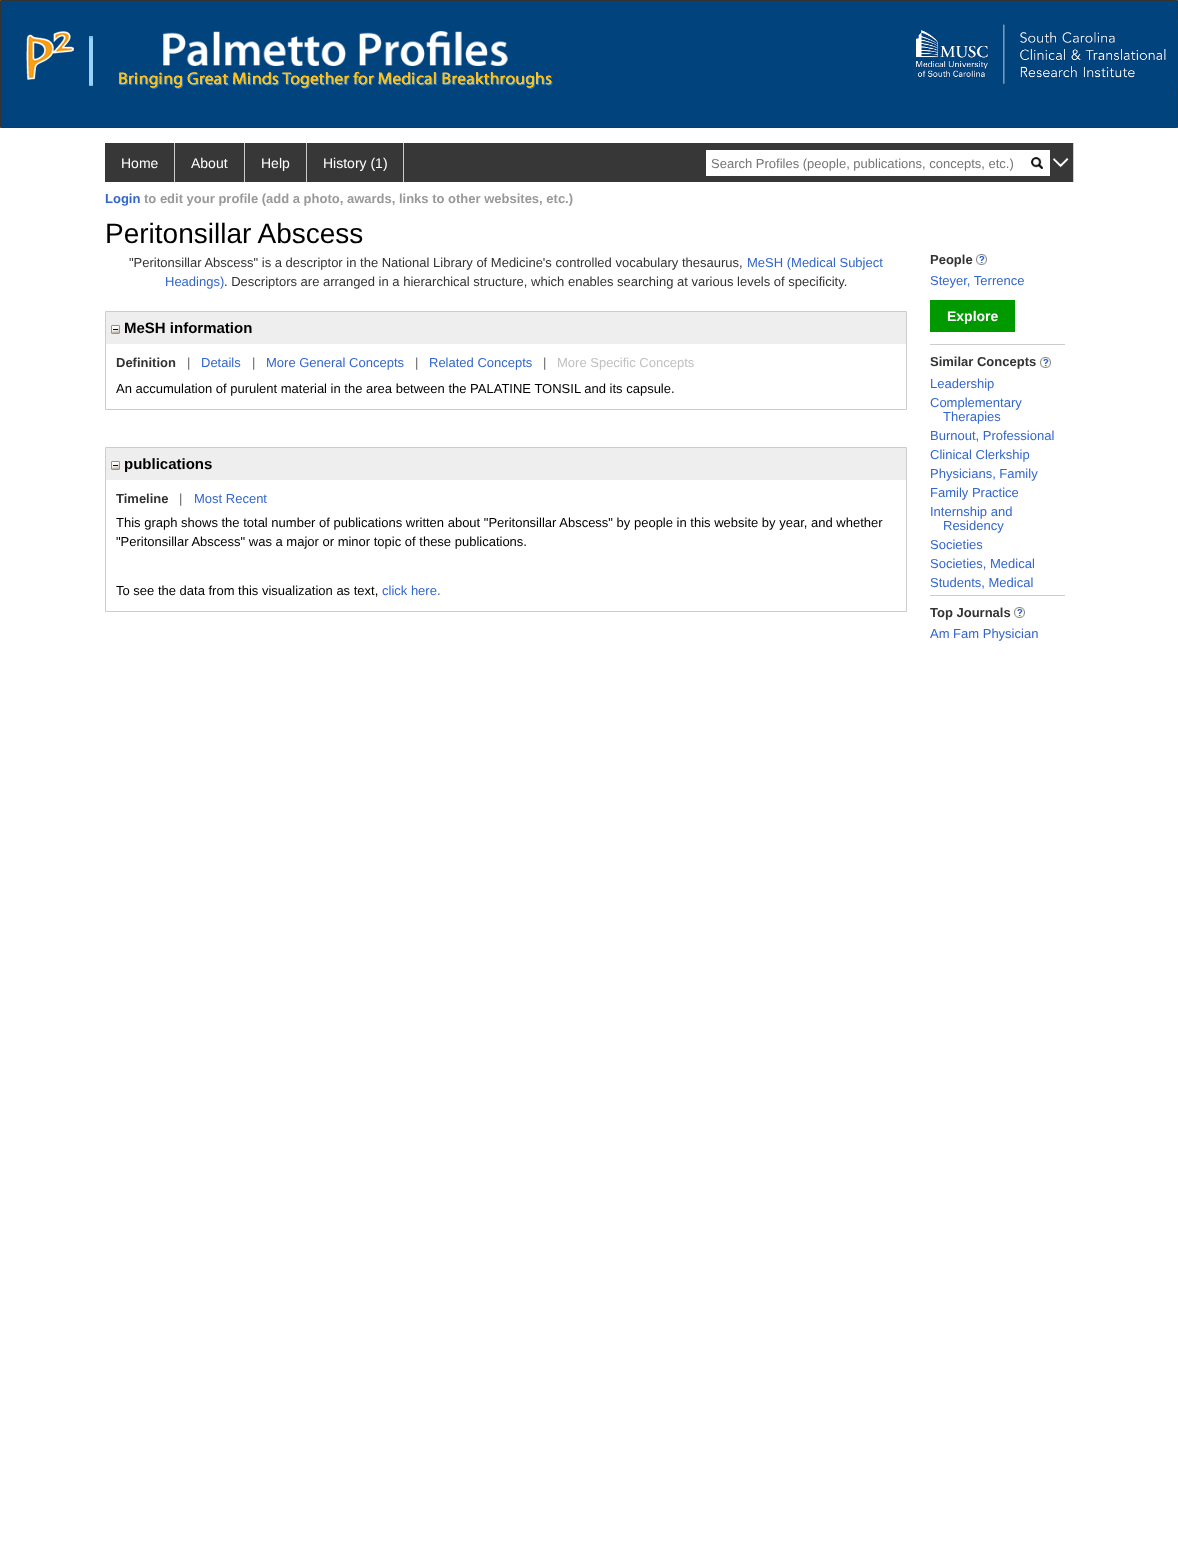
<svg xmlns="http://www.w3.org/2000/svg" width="1178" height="1563">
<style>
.a{font:14px Liberation Sans;fill:#fff}
.b{font:13px Liberation Sans;fill:#757575}
.c{font:bold 13px Liberation Sans;fill:#36c}
.d{font:bold 13px Liberation Sans;fill:#999}
.e{font:28px Liberation Sans;fill:#000}
.f{font:13px Liberation Sans;fill:#333}
.g{font:13px Liberation Sans;fill:#36c}
.h{font:bold 15px Liberation Sans;fill:#000}
.i{font:bold 13px Liberation Sans;fill:#333}
.j{font:13px Liberation Sans;fill:#666}
.k{font:13px Liberation Sans;fill:#c0c0c0}
.l{font:13px Liberation Sans;fill:#000}
.m{font:bold 14px Liberation Sans;fill:#fff}
</style>
<rect width="100%" height="100%" fill="#fff"/>
<path fill="#01437d" stroke="#333" d="M0.5 0.5h1177v127H0.5z"/>
<image href="1.png" x="26" y="31" width="48" height="49"/>
<image href="2.png" x="89" y="36" width="4" height="50"/>
<image href="3.png" x="163" y="31" width="345" height="35"/>
<image href="4.png" x="119" y="71" width="434" height="18"/>
<image href="5.png" x="915" y="20" width="263" height="68"/>
<path fill="#383737" d="M105 143h968v39H105z"/>
<path fill="#ccc" d="M174 143h1v39H174z"/>
<path fill="#ccc" d="M244 143h1v39H244z"/>
<path fill="#ccc" d="M306 143h1v39H306z"/>
<path fill="#ccc" d="M403 143h1v39H403z"/>
<path fill="#fff" d="M706 150h344v26H706z"/>
<image href="6.png" x="1031" y="157" width="12" height="12"/>
<path fill="#ccc" d="M1073 143h1v39H1073z"/>
<image href="7.png" x="1052" y="158" width="17" height="10"/>
<path fill="none" stroke="#ccc" d="M105.5 311.5h801v98H105.5z"/>
<path fill="#eee" d="M106 312h800v32H106z"/>
<image href="8.png" x="111" y="325" width="9" height="9"/>
<path fill="none" stroke="#ccc" d="M105.5 447.5h801v164H105.5z"/>
<path fill="#eee" d="M106 448h800v32H106z"/>
<image href="8.png" x="111" y="461" width="9" height="9"/>
<image href="9.png" x="976" y="254" width="11" height="11"/>
<path fill="#090" d="M930 300h85v32H930z"/>
<path fill="#ccc" d="M930 344h135v1H930z"/>
<image href="9.png" x="1040" y="357" width="11" height="11"/>
<path fill="#ccc" d="M930 595h135v1H930z"/>
<image href="9.png" x="1014" y="607" width="11" height="11"/>
<text class="a" x="121" y="168">Home</text>
<text class="a" x="191" y="168">About</text>
<text class="a" x="261" y="168">Help</text>
<text class="a" x="323" y="168">History (1)</text>
<text class="b" x="711" y="168">Search Profiles (people, publications, concepts, etc.)</text>
<text class="c" x="105" y="203">Login</text>
<text class="d" x="144" y="203">to edit your profile (add a photo, awards, links to other websites, etc.)</text>
<text class="e" x="105" y="243">Peritonsillar Abscess</text>
<text class="f" x="129" y="267">"Peritonsillar Abscess" is a descriptor in the National Library of Medicine's controlled vocabulary thesaurus,</text>
<text class="g" x="747" y="267">MeSH (Medical Subject</text>
<text class="g" x="165" y="286">Headings)</text>
<text class="f" x="224" y="286">. Descriptors are arranged in a hierarchical structure, which enables searching at various levels of specificity.</text>
<text class="h" x="124" y="333">MeSH information</text>
<text class="i" x="116" y="367">Definition</text>
<text class="j" x="187" y="367">|</text>
<text class="g" x="201" y="367">Details</text>
<text class="j" x="252" y="367">|</text>
<text class="g" x="266" y="367">More General Concepts</text>
<text class="j" x="415" y="367">|</text>
<text class="g" x="429" y="367">Related Concepts</text>
<text class="j" x="543" y="367">|</text>
<text class="k" x="557" y="367">More Specific Concepts</text>
<text class="l" x="116" y="393">An accumulation of purulent material in the area between the PALATINE TONSIL and its capsule.</text>
<text class="h" x="124" y="469">publications</text>
<text class="i" x="116" y="503">Timeline</text>
<text class="j" x="179" y="503">|</text>
<text class="g" x="194" y="503">Most Recent</text>
<text class="l" x="116" y="527">This graph shows the total number of publications written about "Peritonsillar Abscess" by people in this website by year, and whether</text>
<text class="l" x="116" y="546">"Peritonsillar Abscess" was a major or minor topic of these publications.</text>
<text class="l" x="116" y="595">To see the data from this visualization as text,</text>
<text class="g" x="382" y="595">click here.</text>
<text class="i" x="930" y="264">People</text>
<text class="g" x="930" y="285">Steyer, Terrence</text>
<text class="m" x="947" y="321">Explore</text>
<text class="i" x="930" y="366">Similar Concepts</text>
<text class="g" x="930" y="388">Leadership</text>
<text class="g" x="930" y="407">Complementary</text>
<text class="g" x="943" y="421">Therapies</text>
<text class="g" x="930" y="440">Burnout, Professional</text>
<text class="g" x="930" y="459">Clinical Clerkship</text>
<text class="g" x="930" y="478">Physicians, Family</text>
<text class="g" x="930" y="497">Family Practice</text>
<text class="g" x="930" y="516">Internship and</text>
<text class="g" x="943" y="530">Residency</text>
<text class="g" x="930" y="549">Societies</text>
<text class="g" x="930" y="568">Societies, Medical</text>
<text class="g" x="930" y="587">Students, Medical</text>
<text class="i" x="930" y="617">Top Journals</text>
<text class="g" x="930" y="638">Am Fam Physician</text>
</svg>
